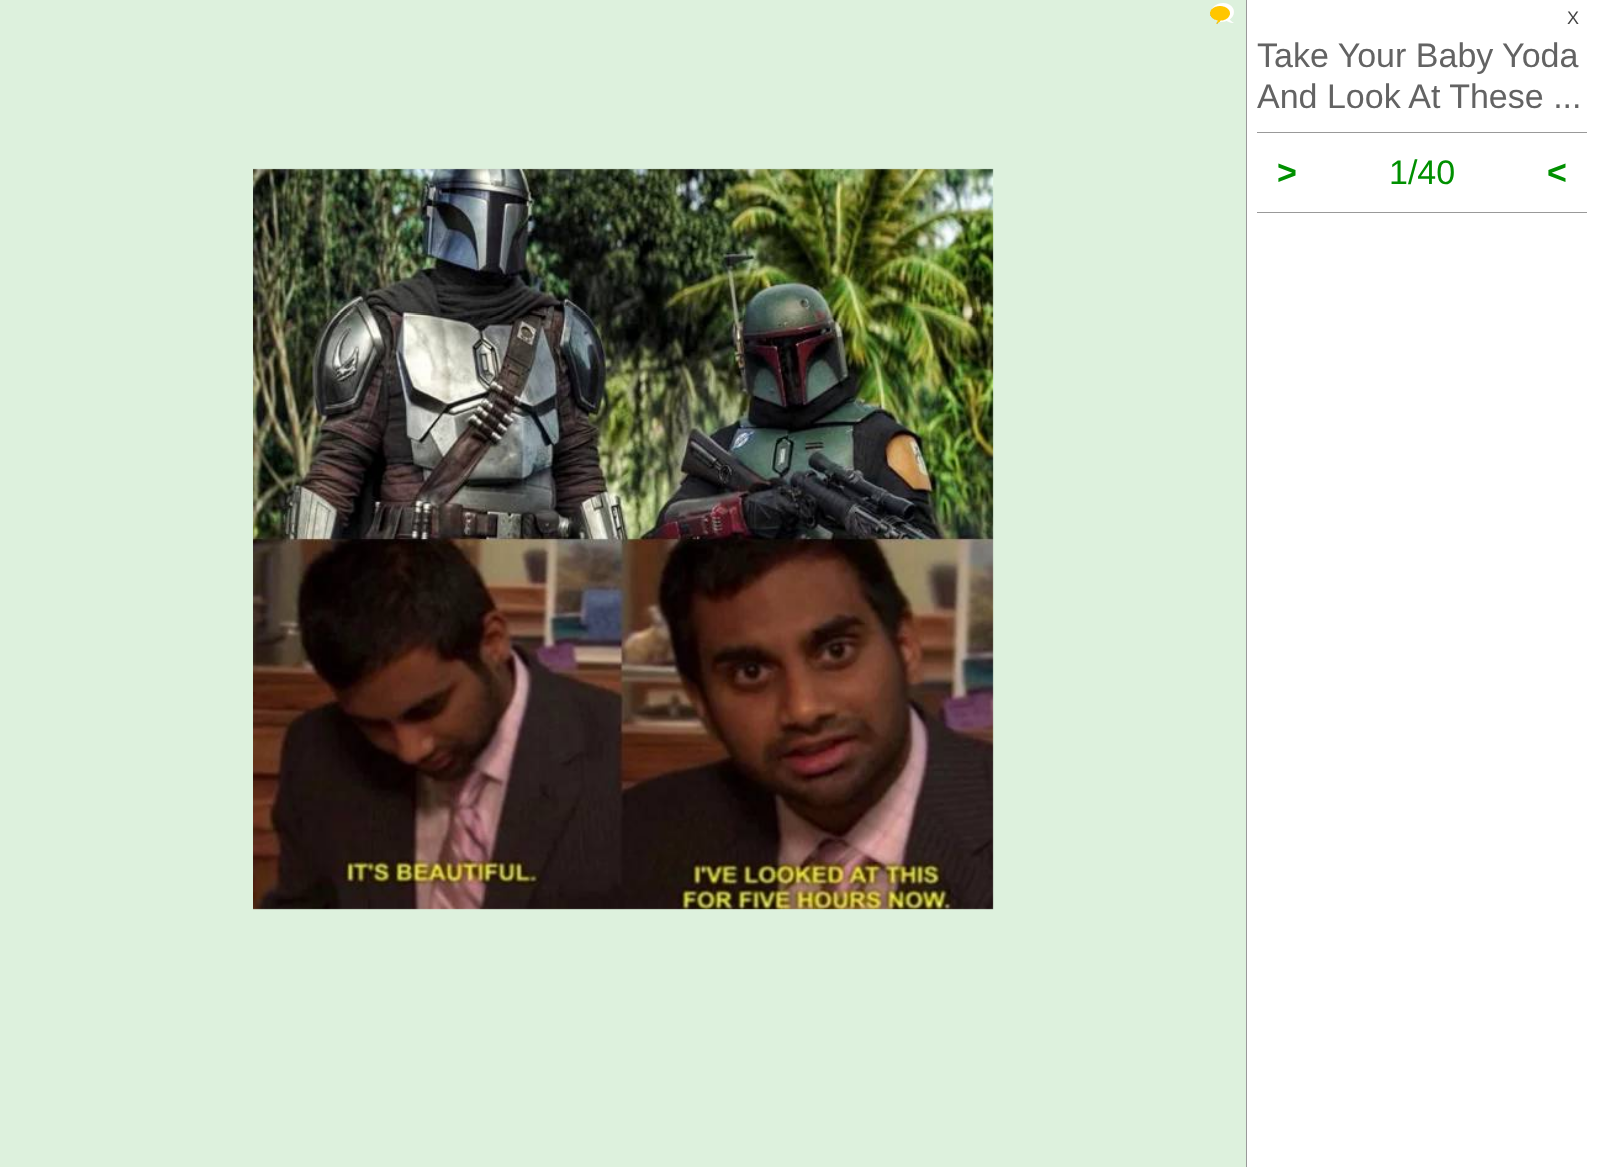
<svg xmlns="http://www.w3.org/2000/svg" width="1597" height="1167">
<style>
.a{font:18px Liberation Sans;fill:#444}
.b{font:34px Liberation Sans;fill:#636363}
.c{font:bold 34px Liberation Sans;fill:#009000}
.d{font:34px Liberation Sans;fill:#009000}
</style>
<rect width="100%" height="100%" fill="#ddf1dd"/>
<image href="1.png" x="1210" y="3" width="24" height="21"/>
<image href="2.png" x="253" y="168" width="741" height="742"/>
<path fill="#fff" d="M1247 0h350v1167H1247z"/>
<path fill="#999" d="M1246 0h1v1167H1246z"/>
<path fill="#999" d="M1257 132h330v1H1257z"/>
<path fill="#999" d="M1257 212h330v1H1257z"/>
<text class="a" x="1567" y="24">X</text>
<text class="b" x="1257" y="67">Take Your Baby Yoda</text>
<text class="b" x="1257" y="108">And Look At These ...</text>
<text class="c" x="1277" y="184">&gt;</text>
<text class="d" x="1389" y="184">1/40</text>
<text class="c" x="1547" y="184">&lt;</text>
</svg>
